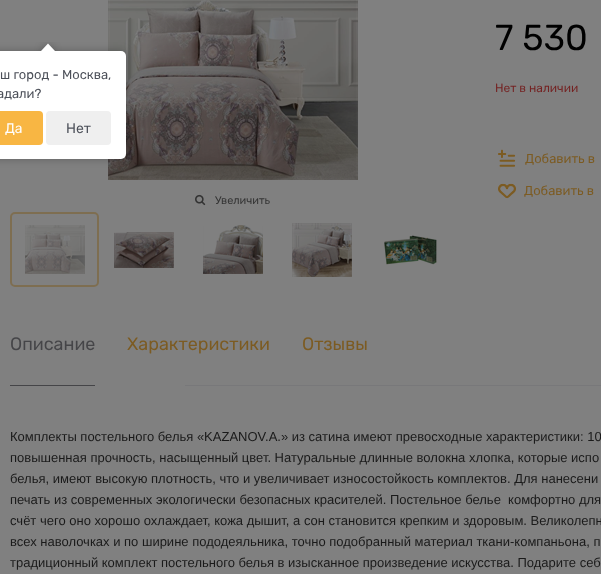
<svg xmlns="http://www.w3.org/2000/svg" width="601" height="574">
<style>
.a{font:36px Rubik;fill:#000}
.b{font:12px Rubik;fill:#742222}
.c{font:13px Rubik;fill:#7c5b22}
.d{font:11px Rubik;fill:#333}
.e{font:18px Rubik;fill:#454548}
.f{font:18px Rubik;fill:#7c5b22}
.g{font:13px Liberation Sans;fill:#1a1a1a}
.h{font:13px Rubik;fill:#4b4f58}
.i{font:14px Rubik;fill:#fff}
.j{font:14px Rubik;fill:#4b4f58}
</style>
<defs>
<clipPath id="clip1"><path d="M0 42h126v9H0z"/></clipPath>
<clipPath id="clip2"><path d="M0 42h126v9H0z"/></clipPath>
</defs>
<rect width="100%" height="100%" fill="#808080"/>
<image href="1.png" x="498" y="149" width="18" height="18"/>
<image href="2.png" x="498" y="183" width="18" height="16"/>
<image href="3.png" x="108" y="0" width="250" height="180"/>
<image href="4.png" x="195" y="194" width="11" height="12"/>
<rect fill="none" stroke="#7e6e51" stroke-width="2" x="11" y="213" width="87" height="73" rx="4"/>
<image href="5.png" x="25" y="225" width="60" height="49"/>
<image href="6.png" x="114" y="232" width="60" height="36"/>
<image href="7.png" x="203" y="225" width="60" height="49"/>
<image href="8.png" x="292" y="223" width="60" height="54"/>
<image href="9.png" x="384" y="235" width="53" height="30"/>
<path fill="#454548" d="M10 385h85v1H10z"/>
<path fill="#78787a" d="M185 385h416v1H185z"/>
<rect fill="#00000040" filter="blur(4.5px)" x="-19" y="51" width="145" height="108" rx="5"/>
<rect fill="#fff" x="-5" y="51" width="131" height="108" rx="5"/>
<g clip-path="url(#clip1)">
<path fill="#00000040" filter="blur(4.5px)" d="M43 46h10v10H43z"/>
</g>
<g clip-path="url(#clip2)">
<path fill="#fff" d="M48 43.5l7 7.5l-7 7l-7-7z"/>
</g>
<rect fill="#f8b643" x="-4" y="111" width="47" height="34" rx="4"/>
<rect fill="#efefef" x="46" y="111" width="65" height="34" rx="4"/>
<text class="a" x="495" y="50">7 530</text>
<text class="b" x="495" y="92">Нет в наличии</text>
<text class="c" x="525" y="163">Добавить в</text>
<text class="c" x="524" y="195">Добавить в</text>
<text class="d" x="215" y="204">Увеличить</text>
<text class="e" x="10" y="350">Описание</text>
<text class="f" x="127" y="350">Характеристики</text>
<text class="f" x="302" y="350">Отзывы</text>
<text class="g" x="10" y="441">Комплекты постельного белья «KAZANOV.A.» из сатина имеют превосходные характеристики: 10</text>
<text class="g" x="10" y="462">повышенная прочность, насыщенный цвет. Натуральные длинные волокна хлопка, которые испо</text>
<text class="g" x="10" y="483">белья, имеют высокую плотность, что и увеличивает износостойкость комплектов. Для нанесени</text>
<text class="g" xml:space="preserve" x="10" y="504">печать из современных экологически безопасных красителей. Постельное белье  комфортно для</text>
<text class="g" x="10" y="525">счёт чего оно хорошо охлаждает, кожа дышит, а сон становится крепким и здоровым. Великолепн</text>
<text class="g" x="10" y="546">всех наволочках и по ширине пододеяльника, точно подобранный материал ткани-компаньона, п</text>
<text class="g" x="10" y="567">традиционный комплект постельного белья в изысканное произведение искусства. Подарите себ</text>
<text class="h" x="0" y="79">ш город - Москва,</text>
<text class="h" x="-3" y="98">адали?</text>
<text class="i" x="5" y="133">Да</text>
<text class="j" x="66" y="133">Нет</text>
</svg>
